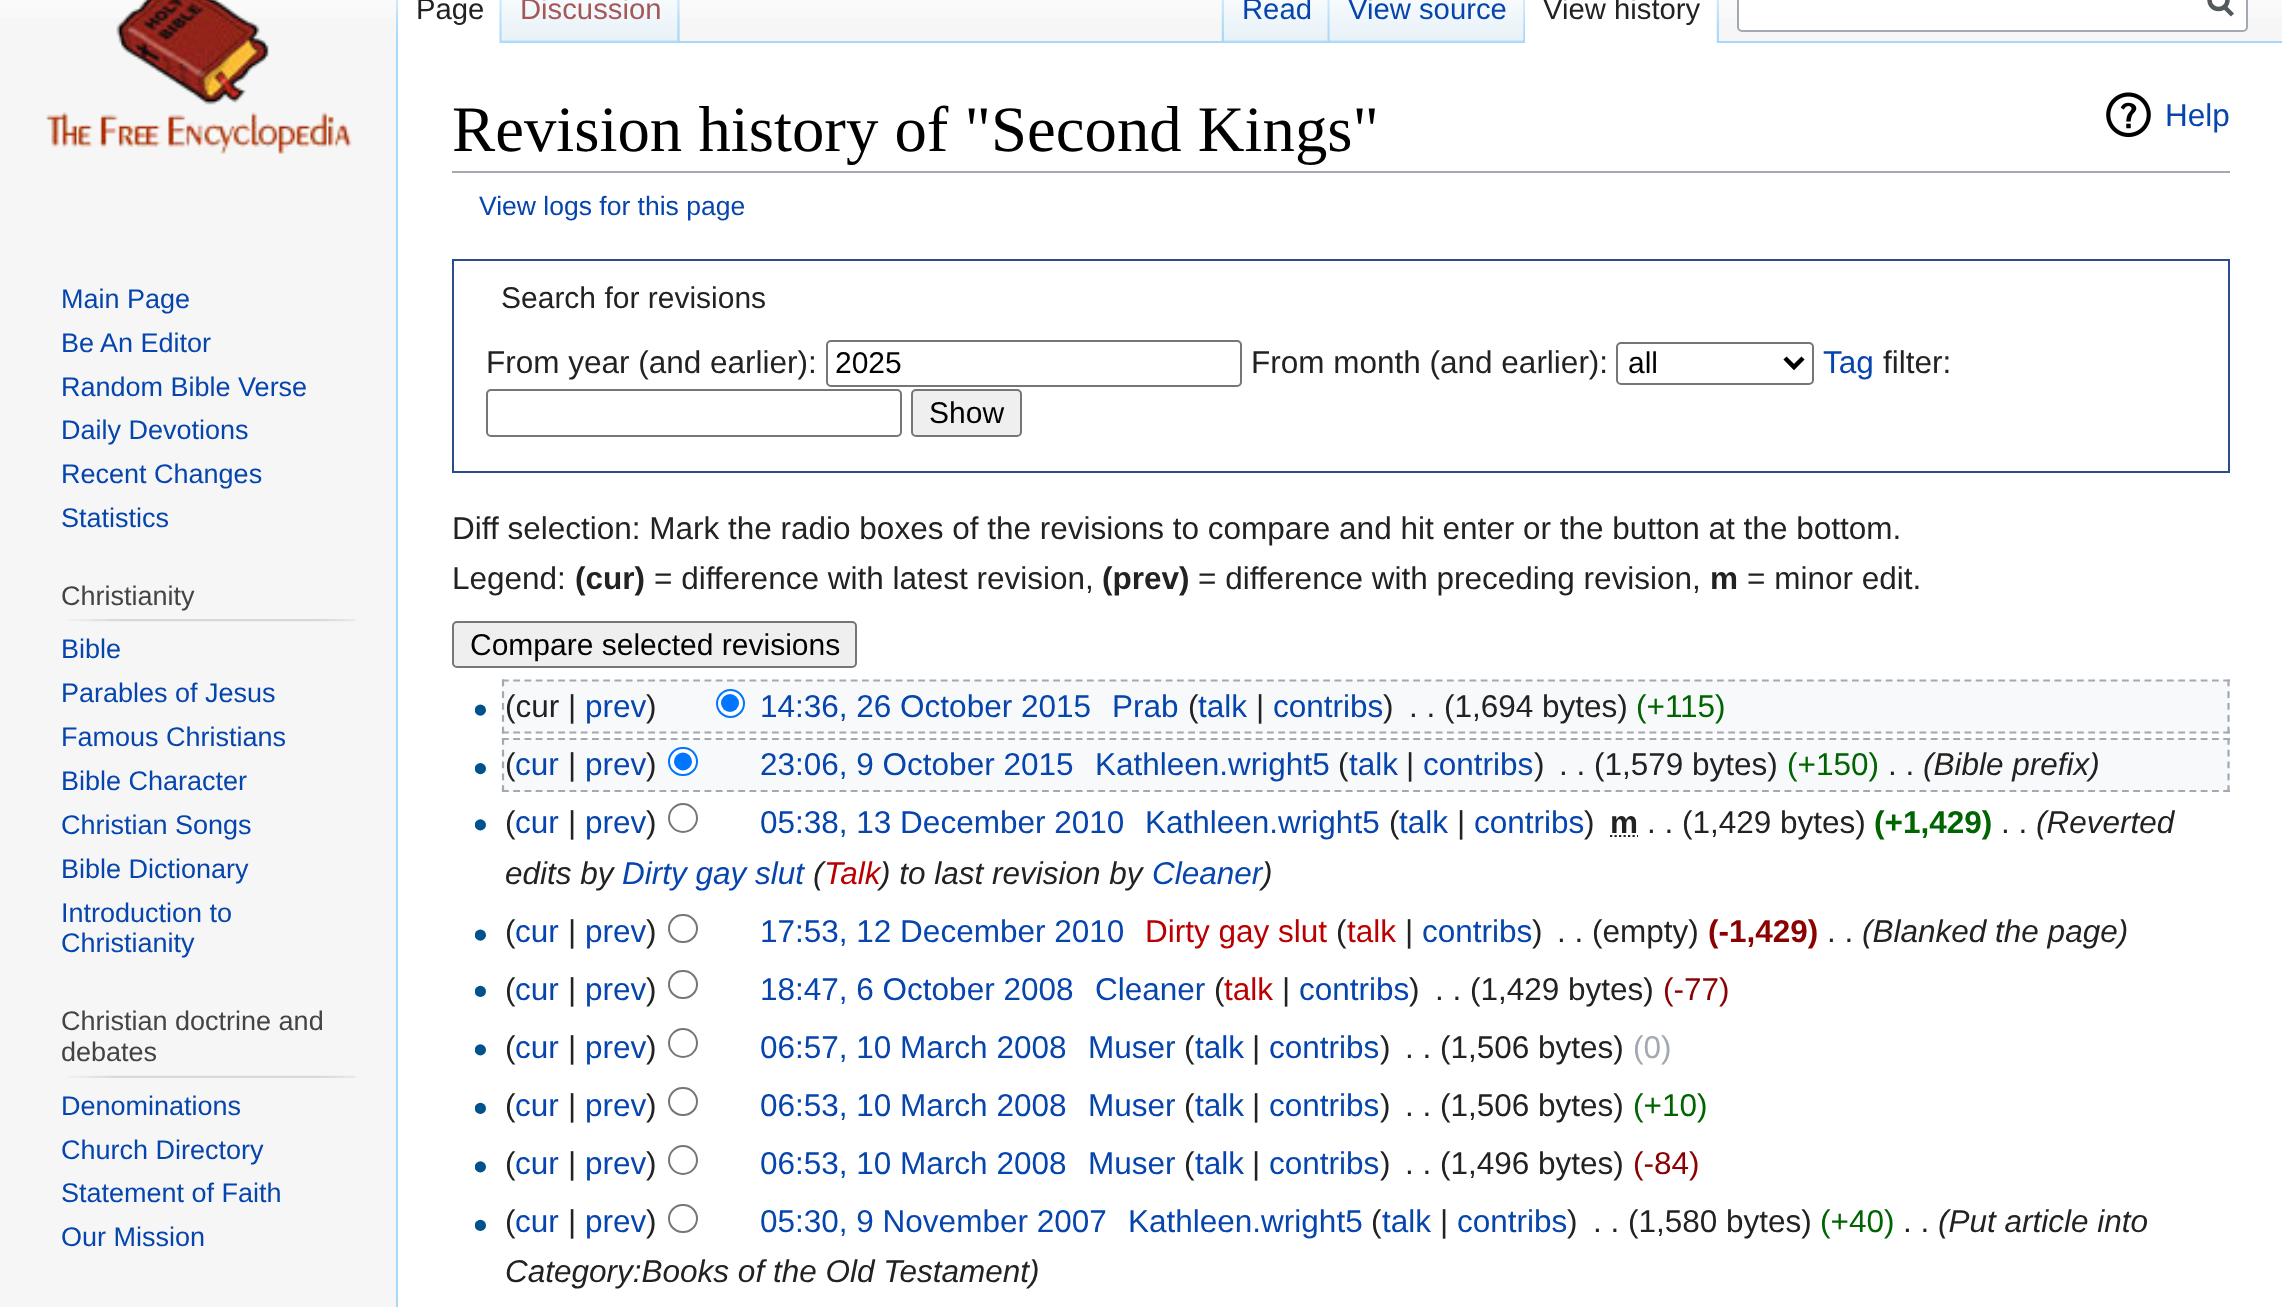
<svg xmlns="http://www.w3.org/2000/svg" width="2282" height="1307">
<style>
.a{font:29.25px Liberation Sans;fill:#222}
.b{font:29.25px Liberation Sans;fill:#a55858}
.c{font:29.25px Liberation Sans;fill:#0645ad}
.d{font:27px Liberation Sans;fill:#0645ad}
.e{font:27px Liberation Sans;fill:#444}
.f{font:64.75px Liberation Serif;fill:#000}
.g{font:31.5px Liberation Sans;fill:#0645ad}
.h{font:26.5px Liberation Sans;fill:#0645ad}
.i{font:30px Liberation Sans;fill:#222}
.j{font:31.5px Liberation Sans;fill:#222}
.k{font:30px Liberation Sans;fill:#000}
.l{font:bold 31.5px Liberation Sans;fill:#222}
.m{font:31.5px Liberation Sans;fill:#006400}
.n{font:italic 31.5px Liberation Sans;fill:#222}
.o{font:bold 31.5px Liberation Sans;fill:#006400}
.p{font:italic 31.5px Liberation Sans;fill:#0645ad}
.q{font:italic 31.5px Liberation Sans;fill:#ba0000}
.r{font:31.5px Liberation Sans;fill:#ba0000}
.s{font:bold 31.5px Liberation Sans;fill:#8b0000}
.t{font:31.5px Liberation Sans;fill:#8b0000}
.u{font:31.5px Liberation Sans;fill:#a2a9b1}
</style>
<defs>
<linearGradient id="g1" gradientUnits="userSpaceOnUse" x1="1142" y1="-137" x2="1142" y2="43"><stop offset="0.5" stop-color="#fff"/><stop offset="1" stop-color="#f6f6f6"/></linearGradient>
</defs>
<rect width="100%" height="100%" fill="#f6f6f6"/>
<path fill="url(#g1)" d="M0 0h2282v18H0z"/>
<image href="1.png" x="396" y="0" width="2" height="41"/>
<image href="2.png" x="679" y="0" width="1" height="41"/>
<path fill="#fff" d="M398 0h104v43H398z"/>
<image href="3.png" x="499" y="0" width="3" height="43"/>
<path fill="#a7d7f9" d="M679 41h1603v2H679z"/>
<image href="4.png" x="501" y="0" width="179" height="43"/>
<image href="5.png" x="677" y="0" width="3" height="42"/>
<image href="6.png" x="1221" y="0" width="3" height="41"/>
<image href="7.png" x="1224" y="2" width="106" height="40"/>
<image href="8.png" x="1327" y="0" width="3" height="42"/>
<image href="9.png" x="1329" y="0" width="195" height="42"/>
<image href="10.png" x="1523" y="0" width="2" height="42"/>
<path fill="#fff" d="M1525 0h192v43H1525z"/>
<image href="11.png" x="1716" y="0" width="3" height="43"/>
<rect fill="#fff" stroke="#a2a9b1" stroke-width="2" x="1738" y="-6" width="509" height="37" rx="4"/>
<path fill="none" stroke="#54595d" stroke-width="4.5" d="M2232.5 15l-9-9"/>
<circle fill="none" stroke="#54595d" stroke-width="4.5" cx="2218.5" cy="0" r="9"/>
<image href="12.png" x="45" y="0" width="307" height="154"/>
<image href="13.png" x="67" y="619" width="289" height="3"/>
<image href="14.png" x="67" y="1075" width="289" height="3"/>
<path fill="#fff" d="M398 43h1884v1264H398z"/>
<path fill="#a7d7f9" d="M396 41h2v1266H396z"/>
<path fill="#a2a9b1" d="M452 171h1778v2H452z"/>
<image href="15.png" x="2106" y="92" width="45" height="46"/>
<path fill="none" stroke="#2a4b8d" stroke-width="2" d="M453 260h1776v212H453z"/>
<rect fill="none" stroke="#767676" stroke-width="2" x="827" y="341" width="414" height="45" rx="4"/>
<rect fill="none" stroke="#767676" stroke-width="2" x="1617" y="343" width="196" height="41" rx="4"/>
<path fill="none" stroke="#000" stroke-width="4.5" d="M1785 358l9 9l9-9"/>
<rect fill="none" stroke="#767676" stroke-width="2" x="487" y="390" width="414" height="46" rx="4"/>
<rect fill="#efefef" stroke="#767676" stroke-width="2" x="912" y="390" width="109" height="46" rx="4"/>
<rect fill="#efefef" stroke="#767676" stroke-width="2" x="453" y="622" width="403" height="45" rx="4"/>
<path fill="#f8f9fa" d="M502 680h1728v54H502z"/>
<path fill="none" stroke="#a2a9b1" stroke-width="2.2" stroke-dasharray="6.75 4.5" d="M502 680.5h1728"/>
<path fill="none" stroke="#a2a9b1" stroke-width="2.2" stroke-dasharray="6.75 5.06" d="M2228.5 679.5v54"/>
<path fill="none" stroke="#a2a9b1" stroke-width="2.2" stroke-dasharray="6.75 4.5" d="M502 732.5h1728"/>
<path fill="none" stroke="#a2a9b1" stroke-width="2.2" stroke-dasharray="6.75 5.06" d="M503 679.5v54"/>
<image href="16.png" x="475" y="704" width="11" height="12"/>
<circle fill="#fff" stroke="#0075ff" stroke-width="2" cx="730.5" cy="703.5" r="13.5"/>
<circle fill="#0075ff" cx="730" cy="703" r="9"/>
<path fill="#f8f9fa" d="M502 738h1728v54H502z"/>
<path fill="none" stroke="#a2a9b1" stroke-width="2.2" stroke-dasharray="6.75 4.5" d="M502 739h1728"/>
<path fill="none" stroke="#a2a9b1" stroke-width="2.2" stroke-dasharray="6.75 5.06" d="M2228.5 738v54"/>
<path fill="none" stroke="#a2a9b1" stroke-width="2.2" stroke-dasharray="6.75 4.5" d="M502 791h1728"/>
<path fill="none" stroke="#a2a9b1" stroke-width="2.2" stroke-dasharray="6.75 5.06" d="M503 738v54"/>
<image href="17.png" x="475" y="763" width="11" height="12"/>
<rect fill="#fff" stroke="#0075ff" stroke-width="2" x="669" y="748" width="28" height="27" rx="13.5"/>
<circle fill="#0075ff" cx="683" cy="761.5" r="9"/>
<image href="18.png" x="475" y="819" width="11" height="12"/>
<circle fill="none" stroke="#767676" stroke-width="2" cx="683" cy="818" r="14"/>
<path fill="none" stroke="#222" stroke-width="2.2" stroke-dasharray="2.25 2.25" d="M1610 836h28"/>
<image href="16.png" x="475" y="929" width="11" height="12"/>
<rect fill="none" stroke="#767676" stroke-width="2" x="669" y="915" width="28" height="27" rx="13.5"/>
<image href="19.png" x="475" y="985" width="11" height="12"/>
<rect fill="none" stroke="#767676" stroke-width="2" x="669" y="971" width="28" height="27" rx="13.5"/>
<image href="18.png" x="475" y="1044" width="11" height="12"/>
<circle fill="none" stroke="#767676" stroke-width="2" cx="683" cy="1043" r="14"/>
<image href="19.png" x="475" y="1102" width="11" height="12"/>
<rect fill="none" stroke="#767676" stroke-width="2" x="669" y="1088" width="28" height="27" rx="13.5"/>
<image href="18.png" x="475" y="1161" width="11" height="12"/>
<circle fill="none" stroke="#767676" stroke-width="2" cx="683" cy="1160" r="14"/>
<image href="19.png" x="475" y="1219" width="11" height="12"/>
<rect fill="none" stroke="#767676" stroke-width="2" x="669" y="1205" width="28" height="27" rx="13.5"/>
<text class="a" x="416" y="19">Page</text>
<text class="b" x="520" y="19">Discussion</text>
<text class="c" x="1242" y="19">Read</text>
<text class="c" x="1348" y="19">View source</text>
<text class="a" x="1543" y="19">View history</text>
<text class="d" x="61" y="308">Main Page</text>
<text class="d" x="61" y="352">Be An Editor</text>
<text class="d" x="61" y="396">Random Bible Verse</text>
<text class="d" x="61" y="439">Daily Devotions</text>
<text class="d" x="61" y="483">Recent Changes</text>
<text class="d" x="61" y="527">Statistics</text>
<text class="e" x="61" y="605">Christianity</text>
<text class="d" x="61" y="658">Bible</text>
<text class="d" x="61" y="702">Parables of Jesus</text>
<text class="d" x="61" y="746">Famous Christians</text>
<text class="d" x="61" y="790">Bible Character</text>
<text class="d" x="61" y="834">Christian Songs</text>
<text class="d" x="61" y="878">Bible Dictionary</text>
<text class="d" x="61" y="922">Introduction to</text>
<text class="d" x="61" y="952">Christianity</text>
<text class="e" x="61" y="1030">Christian doctrine and</text>
<text class="e" x="61" y="1061">debates</text>
<text class="d" x="61" y="1115">Denominations</text>
<text class="d" x="61" y="1159">Church Directory</text>
<text class="d" x="61" y="1202">Statement of Faith</text>
<text class="d" x="61" y="1246">Our Mission</text>
<text class="f" x="452" y="151">Revision history of "Second Kings"</text>
<text class="g" x="2165" y="126">Help</text>
<text class="h" x="479" y="215">View logs for this page</text>
<text class="i" x="501" y="308">Search for revisions</text>
<text class="j" x="486" y="373">From year (and earlier):</text>
<text class="k" x="835" y="373">2025</text>
<text class="j" x="1251" y="373">From month (and earlier):</text>
<text class="k" x="1628" y="373">all</text>
<text class="g" x="1823" y="373">Tag</text>
<text class="j" x="1883" y="373">filter:</text>
<text class="k" x="929" y="423">Show</text>
<text class="j" x="452" y="539">Diff selection: Mark the radio boxes of the revisions to compare and hit enter or the button at the bottom.</text>
<text class="j" x="452" y="589">Legend:</text>
<text class="l" x="575" y="589">(cur)</text>
<text class="j" x="654" y="589">= difference with latest revision,</text>
<text class="l" x="1102" y="589">(prev)</text>
<text class="j" x="1198" y="589">= difference with preceding revision,</text>
<text class="l" x="1710" y="589">m</text>
<text class="j" x="1747" y="589">= minor edit.</text>
<text class="k" x="470" y="655">Compare selected revisions</text>
<text class="j" x="505" y="717">(cur |</text>
<text class="g" x="585" y="717">prev</text>
<text class="j" x="646" y="717">)</text>
<text class="g" x="760" y="717">14:36, 26 October 2015</text>
<text class="g" x="1112" y="717">Prab</text>
<text class="j" x="1188" y="717">(</text>
<text class="g" x="1198" y="717">talk</text>
<text class="j" x="1256" y="717">|</text>
<text class="g" x="1273" y="717">contribs</text>
<text class="j" x="1383" y="717">)</text>
<text class="j" x="1409" y="717">. . (1,694 bytes)</text>
<text class="m" x="1636" y="717">(+115)</text>
<text class="j" x="505" y="775">(</text>
<text class="g" x="515" y="775">cur</text>
<text class="j" x="568" y="775">|</text>
<text class="g" x="585" y="775">prev</text>
<text class="j" x="646" y="775">)</text>
<text class="g" x="760" y="775">23:06, 9 October 2015</text>
<text class="g" x="1095" y="775">Kathleen.wright5</text>
<text class="j" x="1338" y="775">(</text>
<text class="g" x="1349" y="775">talk</text>
<text class="j" x="1406" y="775">|</text>
<text class="g" x="1423" y="775">contribs</text>
<text class="j" x="1534" y="775">)</text>
<text class="j" x="1559" y="775">. . (1,579 bytes)</text>
<text class="m" x="1787" y="775">(+150)</text>
<text class="j" x="1888" y="775">. .</text>
<text class="n" x="1923" y="775">(Bible prefix)</text>
<text class="j" x="505" y="833">(</text>
<text class="g" x="515" y="833">cur</text>
<text class="j" x="568" y="833">|</text>
<text class="g" x="585" y="833">prev</text>
<text class="j" x="646" y="833">)</text>
<text class="g" x="760" y="833">05:38, 13 December 2010</text>
<text class="g" x="1145" y="833">Kathleen.wright5</text>
<text class="j" x="1389" y="833">(</text>
<text class="g" x="1399" y="833">talk</text>
<text class="j" x="1457" y="833">|</text>
<text class="g" x="1474" y="833">contribs</text>
<text class="j" x="1584" y="833">)</text>
<text class="l" x="1610" y="833">m</text>
<text class="j" x="1647" y="833">. . (1,429 bytes)</text>
<text class="o" x="1874" y="833">(+1,429)</text>
<text class="j" x="2001" y="833">. .</text>
<text class="n" x="2036" y="833">(Reverted</text>
<text class="n" x="505" y="884">edits by</text>
<text class="p" x="622" y="884">Dirty gay slut</text>
<text class="n" x="813" y="884">(</text>
<text class="q" x="824" y="884">Talk</text>
<text class="n" x="880" y="884">) to last revision by</text>
<text class="p" x="1152" y="884">Cleaner</text>
<text class="n" x="1262" y="884">)</text>
<text class="j" x="505" y="942">(</text>
<text class="g" x="515" y="942">cur</text>
<text class="j" x="568" y="942">|</text>
<text class="g" x="585" y="942">prev</text>
<text class="j" x="646" y="942">)</text>
<text class="g" x="760" y="942">17:53, 12 December 2010</text>
<text class="r" x="1145" y="942">Dirty gay slut</text>
<text class="j" x="1336" y="942">(</text>
<text class="r" x="1347" y="942">talk</text>
<text class="j" x="1405" y="942">|</text>
<text class="g" x="1422" y="942">contribs</text>
<text class="j" x="1532" y="942">)</text>
<text class="j" x="1557" y="942">. . (empty)</text>
<text class="s" x="1708" y="942">(-1,429)</text>
<text class="j" x="1827" y="942">. .</text>
<text class="n" x="1862" y="942">(Blanked the page)</text>
<text class="j" x="505" y="1000">(</text>
<text class="g" x="515" y="1000">cur</text>
<text class="j" x="568" y="1000">|</text>
<text class="g" x="585" y="1000">prev</text>
<text class="j" x="646" y="1000">)</text>
<text class="g" x="760" y="1000">18:47, 6 October 2008</text>
<text class="g" x="1095" y="1000">Cleaner</text>
<text class="j" x="1214" y="1000">(</text>
<text class="r" x="1224" y="1000">talk</text>
<text class="j" x="1282" y="1000">|</text>
<text class="g" x="1299" y="1000">contribs</text>
<text class="j" x="1409" y="1000">)</text>
<text class="j" x="1435" y="1000">. . (1,429 bytes)</text>
<text class="t" x="1663" y="1000">(-77)</text>
<text class="j" x="505" y="1058">(</text>
<text class="g" x="515" y="1058">cur</text>
<text class="j" x="568" y="1058">|</text>
<text class="g" x="585" y="1058">prev</text>
<text class="j" x="646" y="1058">)</text>
<text class="g" x="760" y="1058">06:57, 10 March 2008</text>
<text class="g" x="1088" y="1058">Muser</text>
<text class="j" x="1184" y="1058">(</text>
<text class="g" x="1195" y="1058">talk</text>
<text class="j" x="1252" y="1058">|</text>
<text class="g" x="1269" y="1058">contribs</text>
<text class="j" x="1380" y="1058">)</text>
<text class="j" x="1405" y="1058">. . (1,506 bytes)</text>
<text class="u" x="1633" y="1058">(0)</text>
<text class="j" x="505" y="1116">(</text>
<text class="g" x="515" y="1116">cur</text>
<text class="j" x="568" y="1116">|</text>
<text class="g" x="585" y="1116">prev</text>
<text class="j" x="646" y="1116">)</text>
<text class="g" x="760" y="1116">06:53, 10 March 2008</text>
<text class="g" x="1088" y="1116">Muser</text>
<text class="j" x="1184" y="1116">(</text>
<text class="g" x="1195" y="1116">talk</text>
<text class="j" x="1252" y="1116">|</text>
<text class="g" x="1269" y="1116">contribs</text>
<text class="j" x="1380" y="1116">)</text>
<text class="j" x="1405" y="1116">. . (1,506 bytes)</text>
<text class="m" x="1633" y="1116">(+10)</text>
<text class="j" x="505" y="1174">(</text>
<text class="g" x="515" y="1174">cur</text>
<text class="j" x="568" y="1174">|</text>
<text class="g" x="585" y="1174">prev</text>
<text class="j" x="646" y="1174">)</text>
<text class="g" x="760" y="1174">06:53, 10 March 2008</text>
<text class="g" x="1088" y="1174">Muser</text>
<text class="j" x="1184" y="1174">(</text>
<text class="g" x="1195" y="1174">talk</text>
<text class="j" x="1252" y="1174">|</text>
<text class="g" x="1269" y="1174">contribs</text>
<text class="j" x="1380" y="1174">)</text>
<text class="j" x="1405" y="1174">. . (1,496 bytes)</text>
<text class="t" x="1633" y="1174">(-84)</text>
<text class="j" x="505" y="1232">(</text>
<text class="g" x="515" y="1232">cur</text>
<text class="j" x="568" y="1232">|</text>
<text class="g" x="585" y="1232">prev</text>
<text class="j" x="646" y="1232">)</text>
<text class="g" x="760" y="1232">05:30, 9 November 2007</text>
<text class="g" x="1128" y="1232">Kathleen.wright5</text>
<text class="j" x="1371" y="1232">(</text>
<text class="g" x="1382" y="1232">talk</text>
<text class="j" x="1440" y="1232">|</text>
<text class="g" x="1457" y="1232">contribs</text>
<text class="j" x="1567" y="1232">)</text>
<text class="j" x="1593" y="1232">. . (1,580 bytes)</text>
<text class="m" x="1820" y="1232">(+40)</text>
<text class="j" x="1903" y="1232">. .</text>
<text class="n" x="1938" y="1232">(Put article into</text>
<text class="n" x="505" y="1282">Category:Books of the Old Testament)</text>
</svg>
